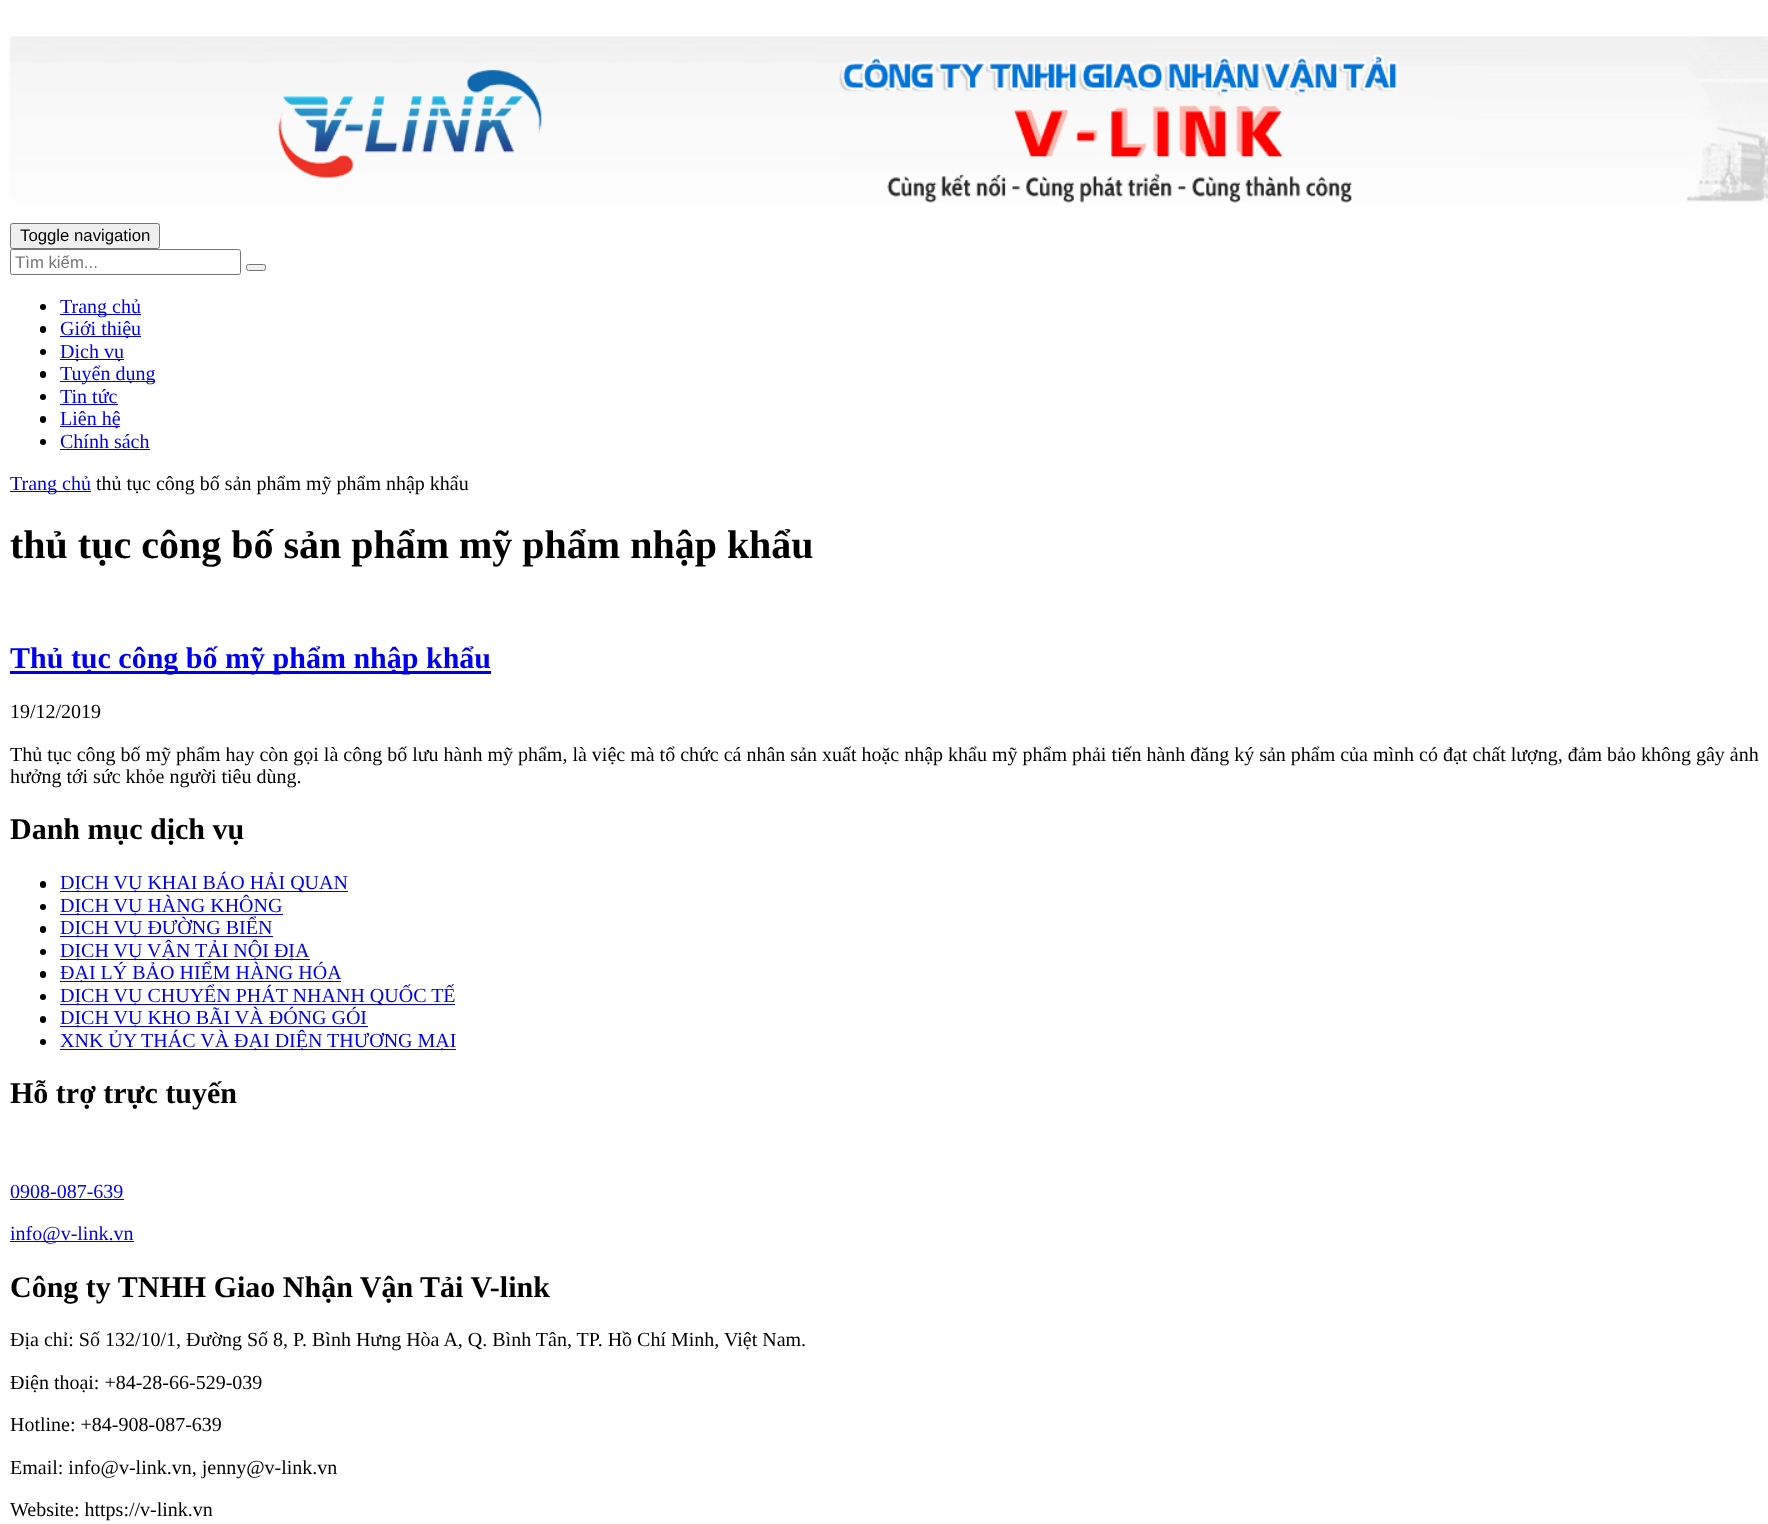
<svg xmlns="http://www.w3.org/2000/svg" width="1768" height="1524">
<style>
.a{font:16.75px Liberation Sans;fill:#000}
.b{font:16.75px Liberation Sans;fill:#757575}
.c{font:20px Liberation Serif;fill:#00e}
.d{font:20px Liberation Serif;fill:#000}
.e{font:bold 40px Liberation Serif;fill:#000}
.f{font:bold 30px Liberation Serif;fill:#00e}
.g{font:bold 30px Liberation Serif;fill:#000}
</style>
<rect width="100%" height="100%" fill="#fff"/>
<image href="1.png" x="10" y="36" width="1758" height="167"/>
<rect fill="#efefef" stroke="#767676" x="10.5" y="223.5" width="149" height="25" rx="2"/>
<rect fill="none" stroke="#767676" x="10.5" y="249.5" width="230" height="25" rx="2"/>
<rect fill="#efefef" stroke="#767676" x="246.5" y="264.5" width="19" height="6" rx="2"/>
<circle fill="#000" cx="43" cy="307" r="3"/>
<path fill="#00e" d="M60 314h81v1H60z"/>
<rect fill="#000" x="40" y="326" width="6" height="7" rx="3"/>
<path fill="#00e" d="M60 336h81v1H60z"/>
<circle fill="#000" cx="43" cy="352" r="3"/>
<path fill="#00e" d="M60 359h64v1H60z"/>
<rect fill="#000" x="40" y="371" width="6" height="7" rx="3"/>
<path fill="#00e" d="M60 381h95v1H60z"/>
<circle fill="#000" cx="43" cy="397" r="3"/>
<path fill="#00e" d="M60 404h58v1H60z"/>
<rect fill="#000" x="40" y="416" width="6" height="7" rx="3"/>
<path fill="#00e" d="M60 426h60v1H60z"/>
<circle fill="#000" cx="43" cy="442" r="3"/>
<path fill="#00e" d="M60 449h90v1H60z"/>
<path fill="#00e" d="M10 491h81v1H10z"/>
<path fill="#00e" d="M10 671h481v3H10z"/>
<rect fill="#000" x="40" y="881" width="6" height="7" rx="3"/>
<path fill="#00e" d="M60 891h288v1H60z"/>
<circle fill="#000" cx="43" cy="907" r="3"/>
<path fill="#00e" d="M60 914h223v1H60z"/>
<rect fill="#000" x="40" y="926" width="6" height="7" rx="3"/>
<path fill="#00e" d="M60 936h213v1H60z"/>
<circle fill="#000" cx="43" cy="952" r="3"/>
<path fill="#00e" d="M60 959h250v1H60z"/>
<rect fill="#000" x="40" y="971" width="6" height="7" rx="3"/>
<path fill="#00e" d="M60 981h281v1H60z"/>
<circle fill="#000" cx="43" cy="997" r="3"/>
<path fill="#00e" d="M60 1004h395v1H60z"/>
<rect fill="#000" x="40" y="1016" width="6" height="7" rx="3"/>
<path fill="#00e" d="M60 1026h308v1H60z"/>
<circle fill="#000" cx="43" cy="1042" r="3"/>
<path fill="#00e" d="M60 1049h396v1H60z"/>
<path fill="#00e" d="M10 1199h114v1H10z"/>
<path fill="#00e" d="M10 1241h124v1H10z"/>
<text class="a" x="20" y="241">Toggle navigation</text>
<text class="b" x="15" y="268">Tìm kiếm...</text>
<text class="c" x="60" y="313">Trang chủ</text>
<text class="c" x="60" y="335">Giới thiệu</text>
<text class="c" x="60" y="358">Dịch vụ</text>
<text class="c" x="60" y="380">Tuyển dụng</text>
<text class="c" x="60" y="403">Tin tức</text>
<text class="c" x="60" y="425">Liên hệ</text>
<text class="c" x="60" y="448">Chính sách</text>
<text class="c" x="10" y="490">Trang chủ</text>
<text class="d" x="96" y="490">thủ tục công bố sản phẩm mỹ phẩm nhập khẩu</text>
<text class="e" x="10" y="558">thủ tục công bố sản phẩm mỹ phẩm nhập khẩu</text>
<text class="f" x="10" y="668">Thủ tục công bố mỹ phẩm nhập khẩu</text>
<text class="d" x="10" y="718">19/12/2019</text>
<text class="d" x="10" y="761">Thủ tục công bố mỹ phẩm hay còn gọi là công bố lưu hành mỹ phẩm, là việc mà tổ chức cá nhân sản xuất hoặc nhập khẩu mỹ phẩm phải tiến hành đăng ký sản phẩm của mình có đạt chất lượng, đảm bảo không gây ảnh</text>
<text class="d" x="10" y="783">hưởng tới sức khỏe người tiêu dùng.</text>
<text class="g" x="10" y="839">Danh mục dịch vụ</text>
<text class="c" x="60" y="889">DỊCH VỤ KHAI BÁO HẢI QUAN</text>
<text class="c" x="60" y="912">DỊCH VỤ HÀNG KHÔNG</text>
<text class="c" x="60" y="934">DỊCH VỤ ĐƯỜNG BIỂN</text>
<text class="c" x="60" y="957">DỊCH VỤ VẬN TẢI NỘI ĐỊA</text>
<text class="c" x="60" y="979">ĐẠI LÝ BẢO HIỂM HÀNG HÓA</text>
<text class="c" x="60" y="1002">DỊCH VỤ CHUYỂN PHÁT NHANH QUỐC TẾ</text>
<text class="c" x="60" y="1024">DỊCH VỤ KHO BÃI VÀ ĐÓNG GÓI</text>
<text class="c" x="60" y="1047">XNK ỦY THÁC VÀ ĐẠI DIỆN THƯƠNG MẠI</text>
<text class="g" x="10" y="1103">Hỗ trợ trực tuyến</text>
<text class="c" x="10" y="1198">0908-087-639</text>
<text class="c" x="10" y="1240">info@v-link.vn</text>
<text class="g" x="10" y="1297">Công ty TNHH Giao Nhận Vận Tải V-link</text>
<text class="d" x="10" y="1346">Địa chỉ: Số 132/10/1, Đường Số 8, P. Bình Hưng Hòa A, Q. Bình Tân, TP. Hồ Chí Minh, Việt Nam.</text>
<text class="d" x="10" y="1389">Điện thoại: +84-28-66-529-039</text>
<text class="d" x="10" y="1431">Hotline: +84-908-087-639</text>
<text class="d" x="10" y="1474">Email: info@v-link.vn, jenny@v-link.vn</text>
<text class="d" x="10" y="1516">Website: https://v-link.vn</text>
</svg>
